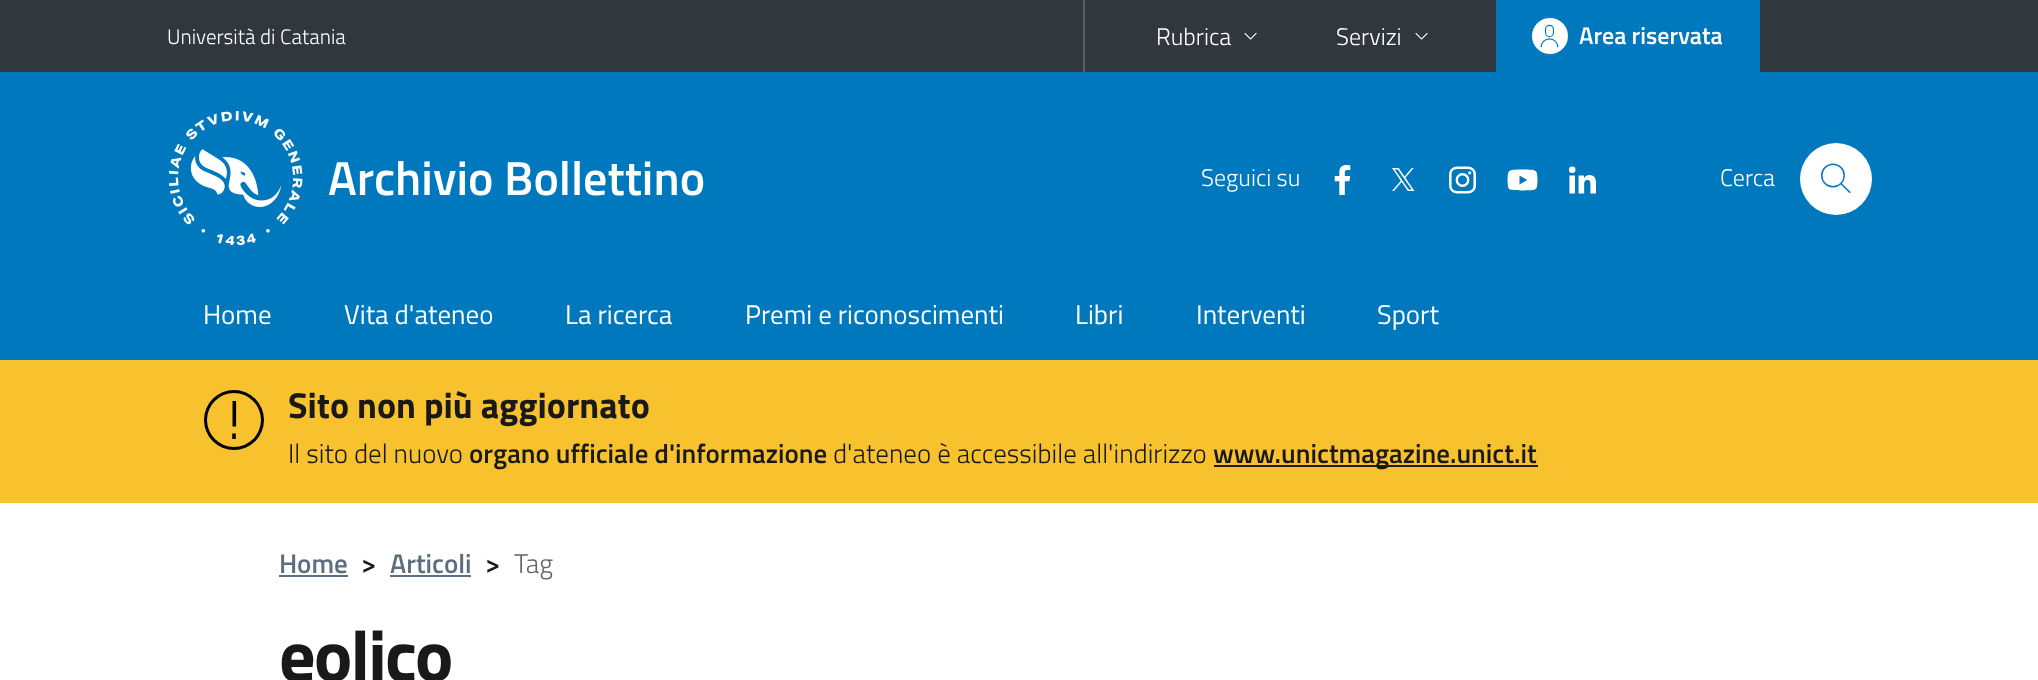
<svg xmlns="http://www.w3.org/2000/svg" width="2038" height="680">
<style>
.a{font:300 21px Titillium Web;fill:#fff}
.b{font:300 24px Titillium Web;fill:#fff}
.c{font:600 24px Titillium Web;fill:#fff}
.d{font:600 48px Titillium Web;fill:#fff}
.e{font:27px Titillium Web;fill:#fff}
.f{font:bold 36px Titillium Web;fill:#19191a}
.g{font:300 27px Titillium Web;fill:#19191a}
.h{font:600 27px Titillium Web;fill:#19191a}
.i{font:600 27px Titillium Web;fill:#5b6f82}
.j{font:300 27px Titillium Web;fill:#656566}
.k{font:bold 72px Titillium Web;letter-spacing:-1.75px;fill:#19191a}
</style>
<rect width="100%" height="100%" fill="#fff"/>
<path fill="#30373d" d="M0 0h2038v72H0z"/>
<path fill="#595f64" d="M1083 0h2v72H1083z"/>
<image href="1.png" x="1244" y="32" width="13" height="8"/>
<image href="1.png" x="1415" y="32" width="13" height="8"/>
<path fill="#0078bd" d="M1496 0h264v72H1496z"/>
<circle fill="#fff" cx="1550" cy="36" r="18"/>
<image href="2.png" x="1540" y="24" width="19" height="24"/>
<path fill="#0078bd" d="M0 72h2038v288H0z"/>
<image href="3.png" x="168" y="111" width="135" height="135"/>
<image href="4.png" x="1334" y="165" width="17" height="30"/>
<image href="5.png" x="1392" y="168" width="23" height="23"/>
<image href="6.png" x="1449" y="166" width="28" height="28"/>
<image href="7.png" x="1507" y="169" width="31" height="22"/>
<image href="8.png" x="1569" y="166" width="27" height="28"/>
<circle fill="#fff" cx="1836" cy="179" r="36"/>
<image href="9.png" x="1821" y="163" width="30" height="31"/>
<path fill="#f8c22e" d="M0 360h2038v143H0z"/>
<image href="10.png" x="204" y="390" width="60" height="60"/>
<path fill="#1c1c1c" d="M1214 465h324v2H1214z"/>
<path fill="#5b6f82" d="M279 575h69v2H279z"/>
<path fill="#5b6f82" d="M390 575h81v2H390z"/>
<text class="a" x="167" y="44">Università di Catania</text>
<text class="b" x="1156" y="45">Rubrica</text>
<text class="b" x="1336" y="45">Servizi</text>
<text class="c" x="1579" y="44">Area riservata</text>
<text class="d" x="328" y="195">Archivio Bollettino</text>
<text class="b" x="1201" y="186">Seguici su</text>
<text class="b" x="1720" y="186">Cerca</text>
<text class="e" x="203" y="324">Home</text>
<text class="e" x="344" y="324">Vita d'ateneo</text>
<text class="e" x="565" y="324">La ricerca</text>
<text class="e" x="745" y="324">Premi e riconoscimenti</text>
<text class="e" x="1075" y="324">Libri</text>
<text class="e" x="1196" y="324">Interventi</text>
<text class="e" x="1377" y="324">Sport</text>
<text class="f" x="288" y="418">Sito non più aggiornato</text>
<text class="g" x="288" y="463">Il sito del nuovo</text>
<text class="h" x="469" y="463">organo ufficiale d'informazione</text>
<text class="g" x="833" y="463">d'ateneo è accessibile all'indirizzo</text>
<text class="h" x="1213" y="463">www.unictmagazine.unict.it</text>
<text class="i" x="279" y="573">Home</text>
<text class="h" x="361" y="573">&gt;</text>
<text class="i" x="390" y="573">Articoli</text>
<text class="h" x="485" y="573">&gt;</text>
<text class="j" x="514" y="573">Tag</text>
<text class="k" x="279" y="681">eolico</text>
</svg>
